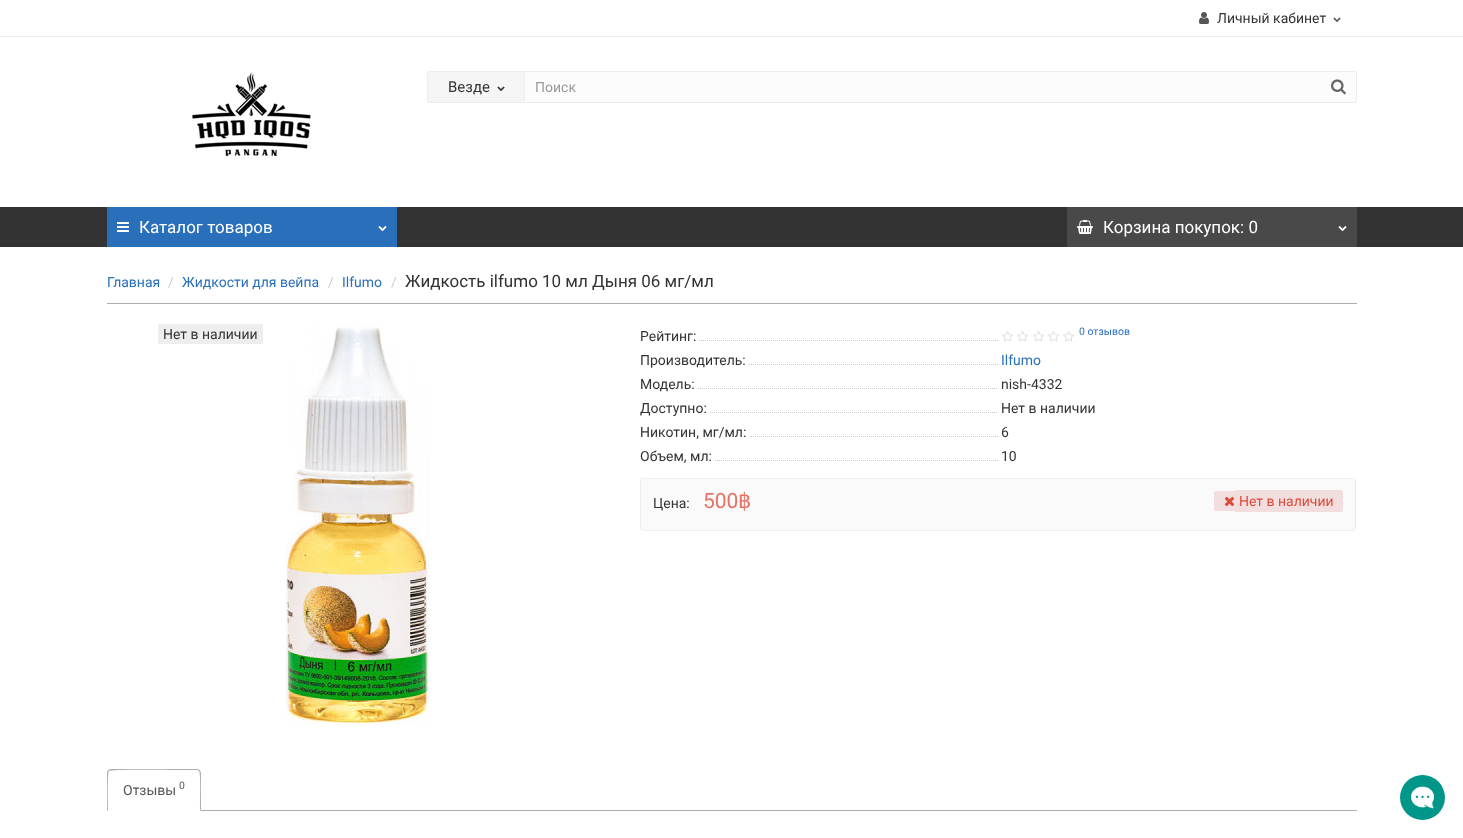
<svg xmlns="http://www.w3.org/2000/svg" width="1463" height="838">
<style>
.a{font:14px Roboto;fill:#333}
.b{font:15px Roboto;fill:#333}
.c{font:14px Roboto;fill:#999}
.d{font:17px Roboto;fill:#fff}
.e{font:14px Roboto;fill:#2a6fba}
.f{font:14px Roboto;fill:#ccc}
.g{font:17px Roboto;fill:#333}
.h{font:10.5px Roboto;fill:#2a6fba}
.i{font:21px Roboto;fill:#e47364}
.j{font:21px DejaVu Sans;fill:#e47364}
.k{font:14px Roboto;fill:#dd4b39}
.l{font:14px Roboto;fill:#555}
.m{font:10.5px Roboto;fill:#555}
</style>
<defs>
<clipPath id="clip1"><path d="M640 324h358v24H640z"/></clipPath>
<clipPath id="clip2"><path d="M640 348h358v24H640z"/></clipPath>
<clipPath id="clip3"><path d="M640 372h358v24H640z"/></clipPath>
<clipPath id="clip4"><path d="M640 396h358v24H640z"/></clipPath>
<clipPath id="clip5"><path d="M640 420h358v24H640z"/></clipPath>
<clipPath id="clip6"><path d="M640 444h358v24H640z"/></clipPath>
</defs>
<rect width="100%" height="100%" fill="#fff"/>
<path fill="#ededed" d="M0 36h1463v1H0z"/>
<image href="1.png" x="1199" y="12" width="10" height="12"/>
<image href="2.png" x="1333" y="17" width="8" height="5"/>
<image href="3.png" x="192" y="72" width="119" height="85"/>
<rect fill="#fcfcfc" stroke="#ededed" x="427.5" y="71.5" width="929" height="31" rx="1.5"/>
<rect fill="#f5f5f5" x="428" y="72" width="97" height="30" rx="2"/>
<image href="4.png" x="497" y="86" width="8" height="6"/>
<path fill="#ededed" d="M524 72h1v30H524z"/>
<image href="5.png" x="1331" y="79" width="15" height="16"/>
<path fill="#333" d="M0 207h1463v40H0z"/>
<path fill="#2a6fba" d="M107 207h290v40H107z"/>
<image href="6.png" x="117" y="222" width="12" height="10"/>
<image href="7.png" x="378" y="226" width="9" height="6"/>
<path fill="#494949" d="M1067 207h290v40H1067z"/>
<image href="8.png" x="1077" y="220" width="16" height="14"/>
<image href="9.png" x="1338" y="226" width="9" height="6"/>
<path fill="#adadad" d="M107 303h1250v1H107z"/>
<rect fill="#eee" x="158" y="324" width="105" height="20" rx="1"/>
<image href="10.png" x="285" y="324" width="145" height="400"/>
<g clip-path="url(#clip1)">
<path fill="none" stroke="#ccc" stroke-dasharray="1 1" d="M699 340.5h359"/>
</g>
<image href="11.png" x="1002" y="331" width="11" height="11"/>
<image href="11.png" x="1017" y="331" width="11" height="11"/>
<image href="11.png" x="1033" y="331" width="11" height="11"/>
<image href="11.png" x="1048" y="331" width="11" height="11"/>
<image href="11.png" x="1063" y="331" width="11" height="11"/>
<g clip-path="url(#clip2)">
<path fill="none" stroke="#ccc" stroke-dasharray="1 1" d="M749 364.5h358"/>
</g>
<g clip-path="url(#clip3)">
<path fill="none" stroke="#ccc" stroke-dasharray="1 1" d="M698 388.5h358"/>
</g>
<g clip-path="url(#clip4)">
<path fill="none" stroke="#ccc" stroke-dasharray="1 1" d="M710 412.5h358"/>
</g>
<g clip-path="url(#clip5)">
<path fill="none" stroke="#ccc" stroke-dasharray="1 1" d="M749 436.5h358"/>
</g>
<g clip-path="url(#clip6)">
<path fill="none" stroke="#ccc" stroke-dasharray="1 1" d="M715 460.5h358"/>
</g>
<rect fill="#fafafa" stroke="#eee" x="640.5" y="478.5" width="715" height="52" rx="2.5"/>
<path fill="#f2dede" d="M1216 491h19v20h-19c-1 0-2-1-2-2v-16c0-1 1-2 2-2z"/>
<path fill="#f2dede" d="M1235 490h106c1 0 2 1 2 2v18c0 1-1 2-2 2h-106z"/>
<image href="12.png" x="1224" y="496" width="11" height="11"/>
<path fill="#adadad" d="M201 810h1156v1H201z"/>
<path fill="#adadad" d="M111 769l-3 1l1 1c2-2 66-1 74-1h14l2 1l1-1l-3-1z"/>
<path fill="#adadad" d="M201 811v-38c0-1-1-2-1-3l-1 1c2 2 1 34 1 39z"/>
<path fill="#adadad" d="M107 811l1-1c0-5-1-37 1-39l-1-1l-1 3z"/>
<circle fill="#009689" cx="1422.5" cy="797.5" r="22.5"/>
<image href="13.png" x="1411" y="786" width="23" height="23"/>
<text class="a" x="1217" y="23">Личный кабинет</text>
<text class="b" x="448" y="92">Везде</text>
<text class="c" x="535" y="92">Поиск</text>
<text class="d" x="139" y="233">Каталог товаров</text>
<text class="d" x="1103" y="233">Корзина покупок: 0</text>
<text class="e" x="107" y="287">Главная</text>
<text class="f" x="168" y="287">/</text>
<text class="e" x="182" y="287">Жидкости для вейпа</text>
<text class="f" x="328" y="287">/</text>
<text class="e" x="342" y="287">Ilfumo</text>
<text class="f" x="391" y="287">/</text>
<text class="g" x="405" y="287">Жидкость ilfumo 10 мл Дыня 06 мг/мл</text>
<text class="a" x="163" y="339">Нет в наличии</text>
<text class="a" x="640" y="341">Рейтинг:</text>
<text class="h" x="1079" y="335">0 отзывов</text>
<text class="a" x="640" y="365">Производитель:</text>
<text class="e" x="1001" y="365">Ilfumo</text>
<text class="a" x="640" y="389">Модель:</text>
<text class="a" x="1001" y="389">nish-4332</text>
<text class="a" x="640" y="413">Доступно:</text>
<text class="a" x="1001" y="413">Нет в наличии</text>
<text class="a" x="640" y="437">Никотин, мг/мл:</text>
<text class="a" x="1001" y="437">6</text>
<text class="a" x="640" y="461">Объем, мл:</text>
<text class="a" x="1001" y="461">10</text>
<text class="a" x="653" y="508">Цена:</text>
<text class="i" x="703" y="508">500</text>
<text class="j" x="738" y="508">฿</text>
<text class="k" x="1239" y="506">Нет в наличии</text>
<text class="l" x="123" y="795">Отзывы</text>
<text class="m" x="179" y="789">0</text>
</svg>
